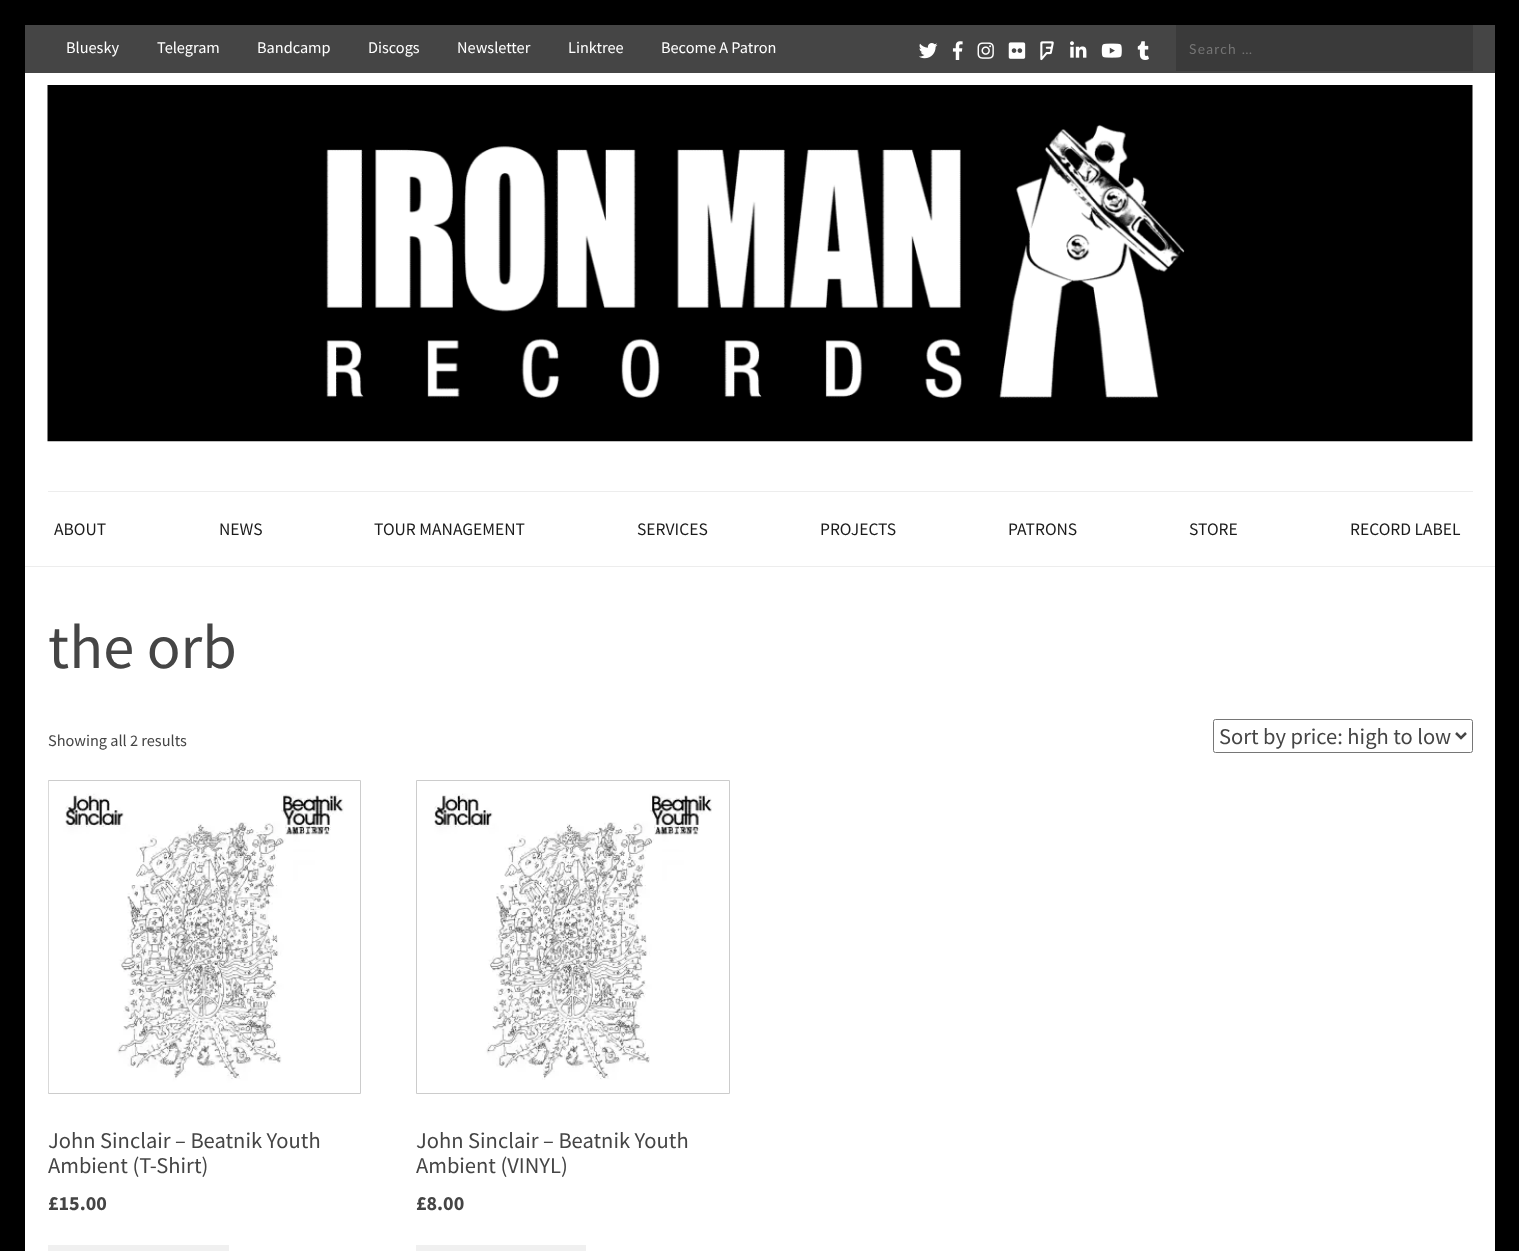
<svg xmlns="http://www.w3.org/2000/svg" width="1519" height="1251">
<style>
.a{font:16.25px Source Sans Pro;fill:#fff}
.b{font:13.75px Lato;letter-spacing:1.25px;fill:#757575}
.c{font:17.5px Source Sans Pro;fill:#1b1b1b}
.d{font:62.5px Source Sans Pro;fill:#454545}
.e{font:16.25px Source Sans Pro;fill:#454545}
.f{font:22.5px Source Sans Pro;fill:#454545}
.g{font:bold 20px Source Sans Pro;fill:#454545}
</style>
<rect width="100%" height="100%" fill="#000"/>
<path fill="#fff" d="M25 73h1470v1178H25z"/>
<path fill="#454545" d="M25 25h1470v48H25z"/>
<image href="1.png" x="919" y="43" width="19" height="16"/>
<image href="2.png" x="952" y="41" width="11" height="19"/>
<image href="3.png" x="977" y="42" width="17" height="17"/>
<image href="4.png" x="1008" y="42" width="18" height="17"/>
<image href="5.png" x="1040" y="41" width="14" height="20"/>
<image href="6.png" x="1070" y="41" width="17" height="17"/>
<image href="7.png" x="1101" y="43" width="21" height="15"/>
<image href="8.png" x="1137" y="41" width="12" height="19"/>
<path fill="#3a3a3a" d="M1176 25h297v46H1176z"/>
<path fill="#ededed" d="M48 491h1425v1H48z"/>
<image href="9.png" x="47" y="85" width="1426" height="357"/>
<path fill="#ededed" d="M25 566h1470v1H25z"/>
<rect fill="none" stroke="#767676" x="1213.5" y="719.5" width="259" height="33" rx="2"/>
<path fill="none" stroke="#454545" stroke-width="2.5" d="M1456 733l5 5l5-5"/>
<path fill="none" stroke="#ccc" d="M48.5 780.5h312v313H48.5z"/>
<image href="10.png" x="48" y="781" width="296" height="312"/>
<path fill="#f0f0f0" d="M48 1245h181v6H48z"/>
<path fill="none" stroke="#ccc" d="M416.5 780.5h313v313H416.5z"/>
<image href="11.png" x="434" y="793" width="278" height="287"/>
<path fill="#f0f0f0" d="M416 1245h170v6H416z"/>
<text class="a" x="66" y="53">Bluesky</text>
<text class="a" x="157" y="53">Telegram</text>
<text class="a" x="257" y="53">Bandcamp</text>
<text class="a" x="368" y="53">Discogs</text>
<text class="a" x="457" y="53">Newsletter</text>
<text class="a" x="568" y="53">Linktree</text>
<text class="a" x="661" y="53">Become A Patron</text>
<text class="b" x="1189" y="54">Search …</text>
<text class="c" x="54" y="535">ABOUT</text>
<text class="c" x="219" y="535">NEWS</text>
<text class="c" x="374" y="535">TOUR MANAGEMENT</text>
<text class="c" x="637" y="535">SERVICES</text>
<text class="c" x="820" y="535">PROJECTS</text>
<text class="c" x="1008" y="535">PATRONS</text>
<text class="c" x="1189" y="535">STORE</text>
<text class="c" x="1350" y="535">RECORD LABEL</text>
<text class="d" x="48" y="668">the orb</text>
<text class="e" x="48" y="746">Showing all 2 results</text>
<text class="f" x="1219" y="744">Sort by price: high to low</text>
<text class="f" x="48" y="1148">John Sinclair – Beatnik Youth</text>
<text class="f" x="48" y="1173">Ambient (T-Shirt)</text>
<text class="g" x="48" y="1210">£15.00</text>
<text class="f" x="416" y="1148">John Sinclair – Beatnik Youth</text>
<text class="f" x="416" y="1173">Ambient (VINYL)</text>
<text class="g" x="416" y="1210">£8.00</text>
</svg>
